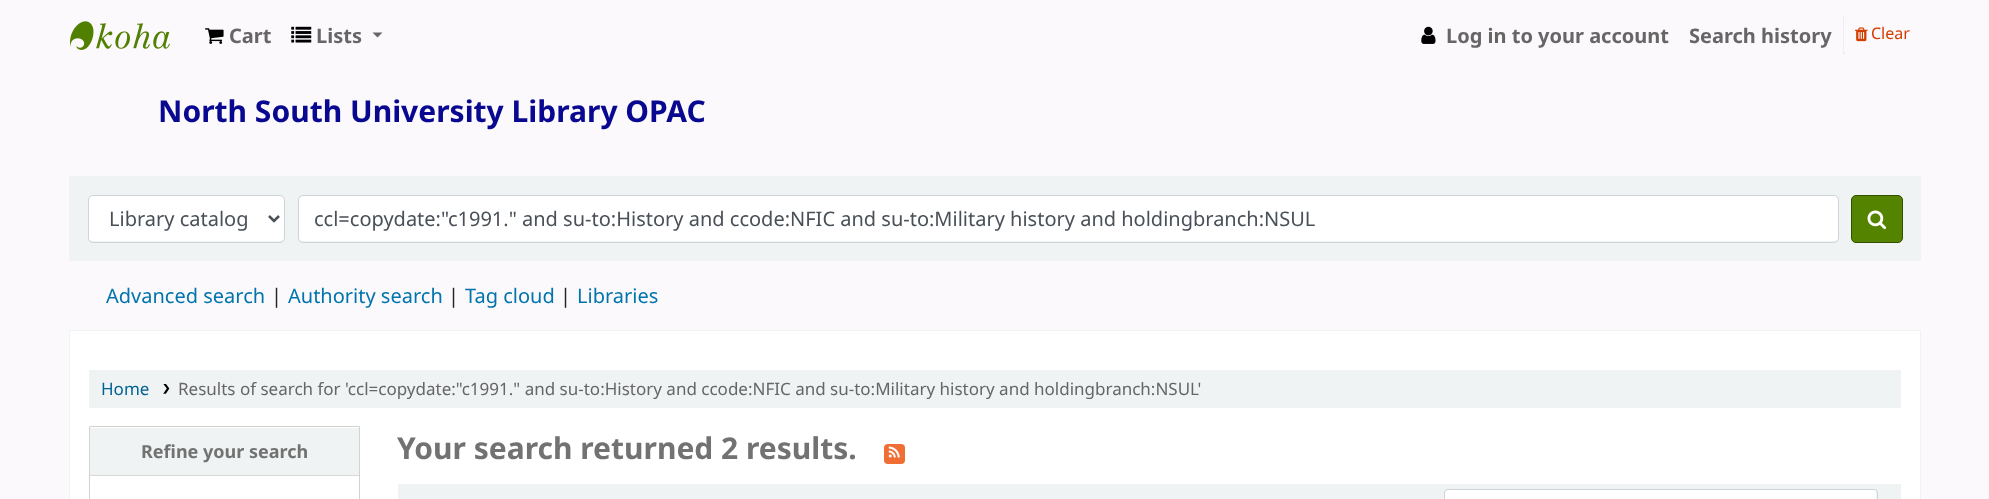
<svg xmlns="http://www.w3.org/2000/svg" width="1989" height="499">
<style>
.a{font:bold 20px Noto Sans;fill:#666}
.b{font:16px Noto Sans;fill:#d43c00}
.c{font:bold 30px Noto Sans;fill:#080890}
.d{font:20px Noto Sans;fill:#495057}
.e{font:20px Noto Sans;fill:#0074ad}
.f{font:20px Noto Sans;fill:#212529}
.g{font:17px Noto Sans;fill:#006394}
.h{font:17px Noto Sans;fill:#666}
.i{font:bold 18px Noto Sans;fill:#727272}
.j{font:bold 30px Noto Sans;fill:#727272}
</style>
<rect width="100%" height="100%" fill="#fcf9fc"/>
<image href="1.png" x="70" y="21" width="100" height="29"/>
<image href="2.png" x="205" y="28" width="19" height="16"/>
<image href="3.png" x="291" y="26" width="21" height="17"/>
<path fill="#666" d="M372.5 32.5h10l-5 5z"/>
<image href="4.png" x="1421" y="26" width="15" height="18"/>
<path fill="#eee" d="M1843 16h3v1H1843z"/>
<path fill="#fcf9fc" d="M1844 16h1v1H1844z"/>
<path fill="#eee" d="M1843 53h3v1H1843z"/>
<path fill="#eee" d="M1843 16h1v38H1843z"/>
<image href="5.png" x="1855" y="27" width="13" height="15"/>
<path fill="#f0f3f3" d="M69 176h1852v85H69z"/>
<rect fill="#fff" x="89" y="196" width="195" height="45" rx="4"/>
<rect fill="none" stroke="#ced4da" x="88.5" y="195.5" width="196" height="47" rx="4.5"/>
<path fill="none" stroke="#495057" stroke-width="2.5" d="M269 216l5 5l5-5"/>
<rect fill="#fff" x="299" y="196" width="1539" height="45" rx="4"/>
<rect fill="none" stroke="#ced4da" x="298.5" y="195.5" width="1540" height="47" rx="4.5"/>
<rect fill="#548300" stroke="#335000" x="1851.5" y="195.5" width="51" height="47" rx="4.5"/>
<image href="6.png" x="1867" y="210" width="20" height="20"/>
<path fill="#fff" stroke="#f0f3f3" d="M69.5 330.5h1851v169H69.5z"/>
<path fill="#f0f3f3" d="M89 370h1812v38H89z"/>
<image href="7.png" x="163" y="384" width="7" height="10"/>
<path fill="none" stroke="#d2d2cf" d="M89.5 426.5h270v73H89.5z"/>
<path fill="#f0f3f3" d="M90 428h269v47H90z"/>
<path fill="#d8d8d8" d="M90 475h269v1H90z"/>
<rect fill="#f06d34" x="884" y="444" width="21" height="20" rx="4"/>
<image href="8.png" x="888" y="446" width="12" height="12"/>
<path fill="#f0f3f3" d="M398 484h1503v15H398z"/>
<rect fill="#fff" x="1445" y="490" width="431" height="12" rx="2.5"/>
<rect fill="none" stroke="#ced4da" x="1444.5" y="489.5" width="433" height="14" rx="3.5"/>
<text class="a" x="229" y="43">Cart</text>
<text class="a" x="316" y="43">Lists</text>
<text class="a" x="1446" y="43">Log in to your account</text>
<text class="a" x="1689" y="43">Search history</text>
<text class="b" x="1871" y="39">Clear</text>
<text class="c" x="158" y="122">North South University Library OPAC</text>
<text class="d" x="109" y="226">Library catalog</text>
<text class="d" x="314" y="226">ccl=copydate:"c1991." and su-to:History and ccode:NFIC and su-to:Military history and holdingbranch:NSUL</text>
<text class="e" x="106" y="303">Advanced search</text>
<text class="f" x="271" y="303">|</text>
<text class="e" x="288" y="303">Authority search</text>
<text class="f" x="448" y="303">|</text>
<text class="e" x="465" y="303">Tag cloud</text>
<text class="f" x="560" y="303">|</text>
<text class="e" x="577" y="303">Libraries</text>
<text class="g" x="101" y="395">Home</text>
<text class="h" x="178" y="395">Results of search for 'ccl=copydate:"c1991." and su-to:History and ccode:NFIC and su-to:Military history and holdingbranch:NSUL'</text>
<text class="i" x="141" y="458">Refine your search</text>
<text class="j" x="397" y="459">Your search returned 2 results.</text>
</svg>
